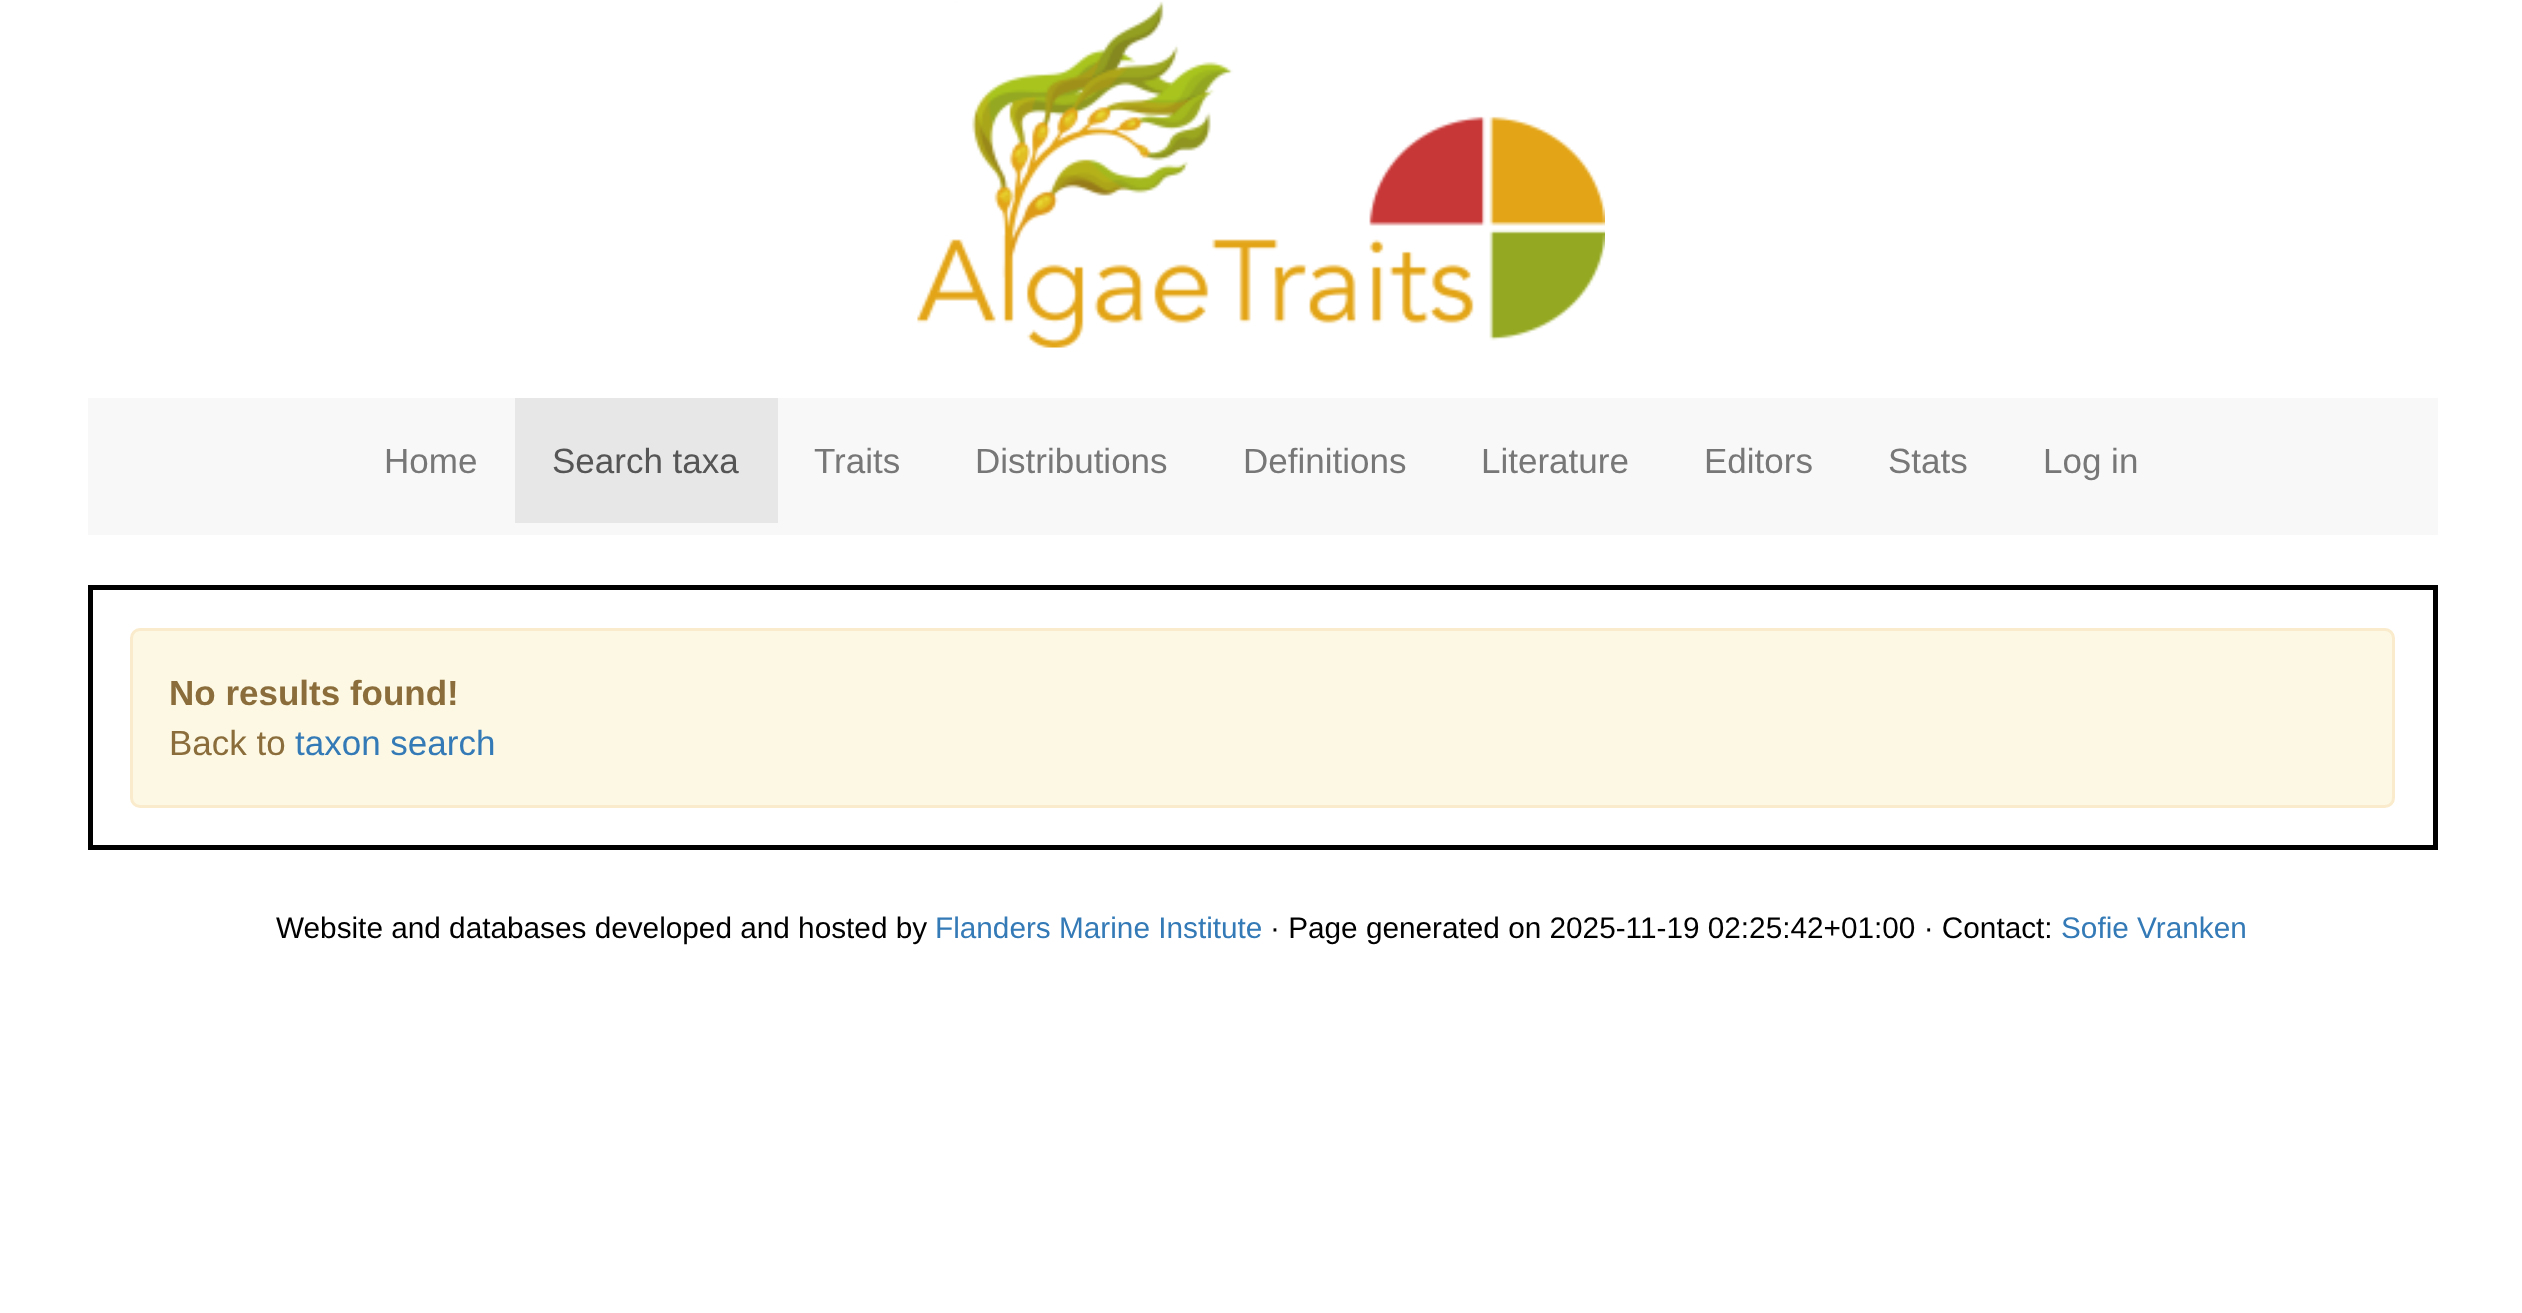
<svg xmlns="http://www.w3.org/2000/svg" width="2522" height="1313">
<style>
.a{font:35px Liberation Sans;fill:#777}
.b{font:35px Liberation Sans;fill:#555}
.c{font:bold 35px Liberation Sans;fill:#8a6d3b}
.d{font:35px Liberation Sans;fill:#8a6d3b}
.e{font:35px Liberation Sans;fill:#337ab7}
.f{font:29.75px Liberation Sans;fill:#000}
.g{font:29.75px Liberation Sans;fill:#337ab7}
</style>
<rect width="100%" height="100%" fill="#fff"/>
<image href="1.png" x="917" y="1" width="688" height="347"/>
<path fill="#f8f8f8" d="M88 398h2350v137H88z"/>
<path fill="#e7e7e7" d="M515 398h263v125H515z"/>
<path fill="none" stroke="#000" stroke-width="5" d="M90.5 587.5h2345v260H90.5z"/>
<rect fill="#fcf8e3" stroke="#faebcc" stroke-width="3" x="131.5" y="629.5" width="2262" height="177" rx="8.5"/>
<text class="a" x="384" y="473">Home</text>
<text class="b" x="552" y="473">Search taxa</text>
<text class="a" x="814" y="473">Traits</text>
<text class="a" x="975" y="473">Distributions</text>
<text class="a" x="1243" y="473">Definitions</text>
<text class="a" x="1481" y="473">Literature</text>
<text class="a" x="1704" y="473">Editors</text>
<text class="a" x="1888" y="473">Stats</text>
<text class="a" x="2043" y="473">Log in</text>
<text class="c" x="169" y="705">No results found!</text>
<text class="d" x="169" y="755">Back to</text>
<text class="e" x="295" y="755">taxon search</text>
<text class="f" x="276" y="938">Website and databases developed and hosted by</text>
<text class="g" x="935" y="938">Flanders Marine Institute</text>
<text class="f" x="1270" y="938">· Page generated on 2025-11-19 02:25:42+01:00 · Contact:</text>
<text class="g" x="2061" y="938">Sofie Vranken</text>
</svg>
